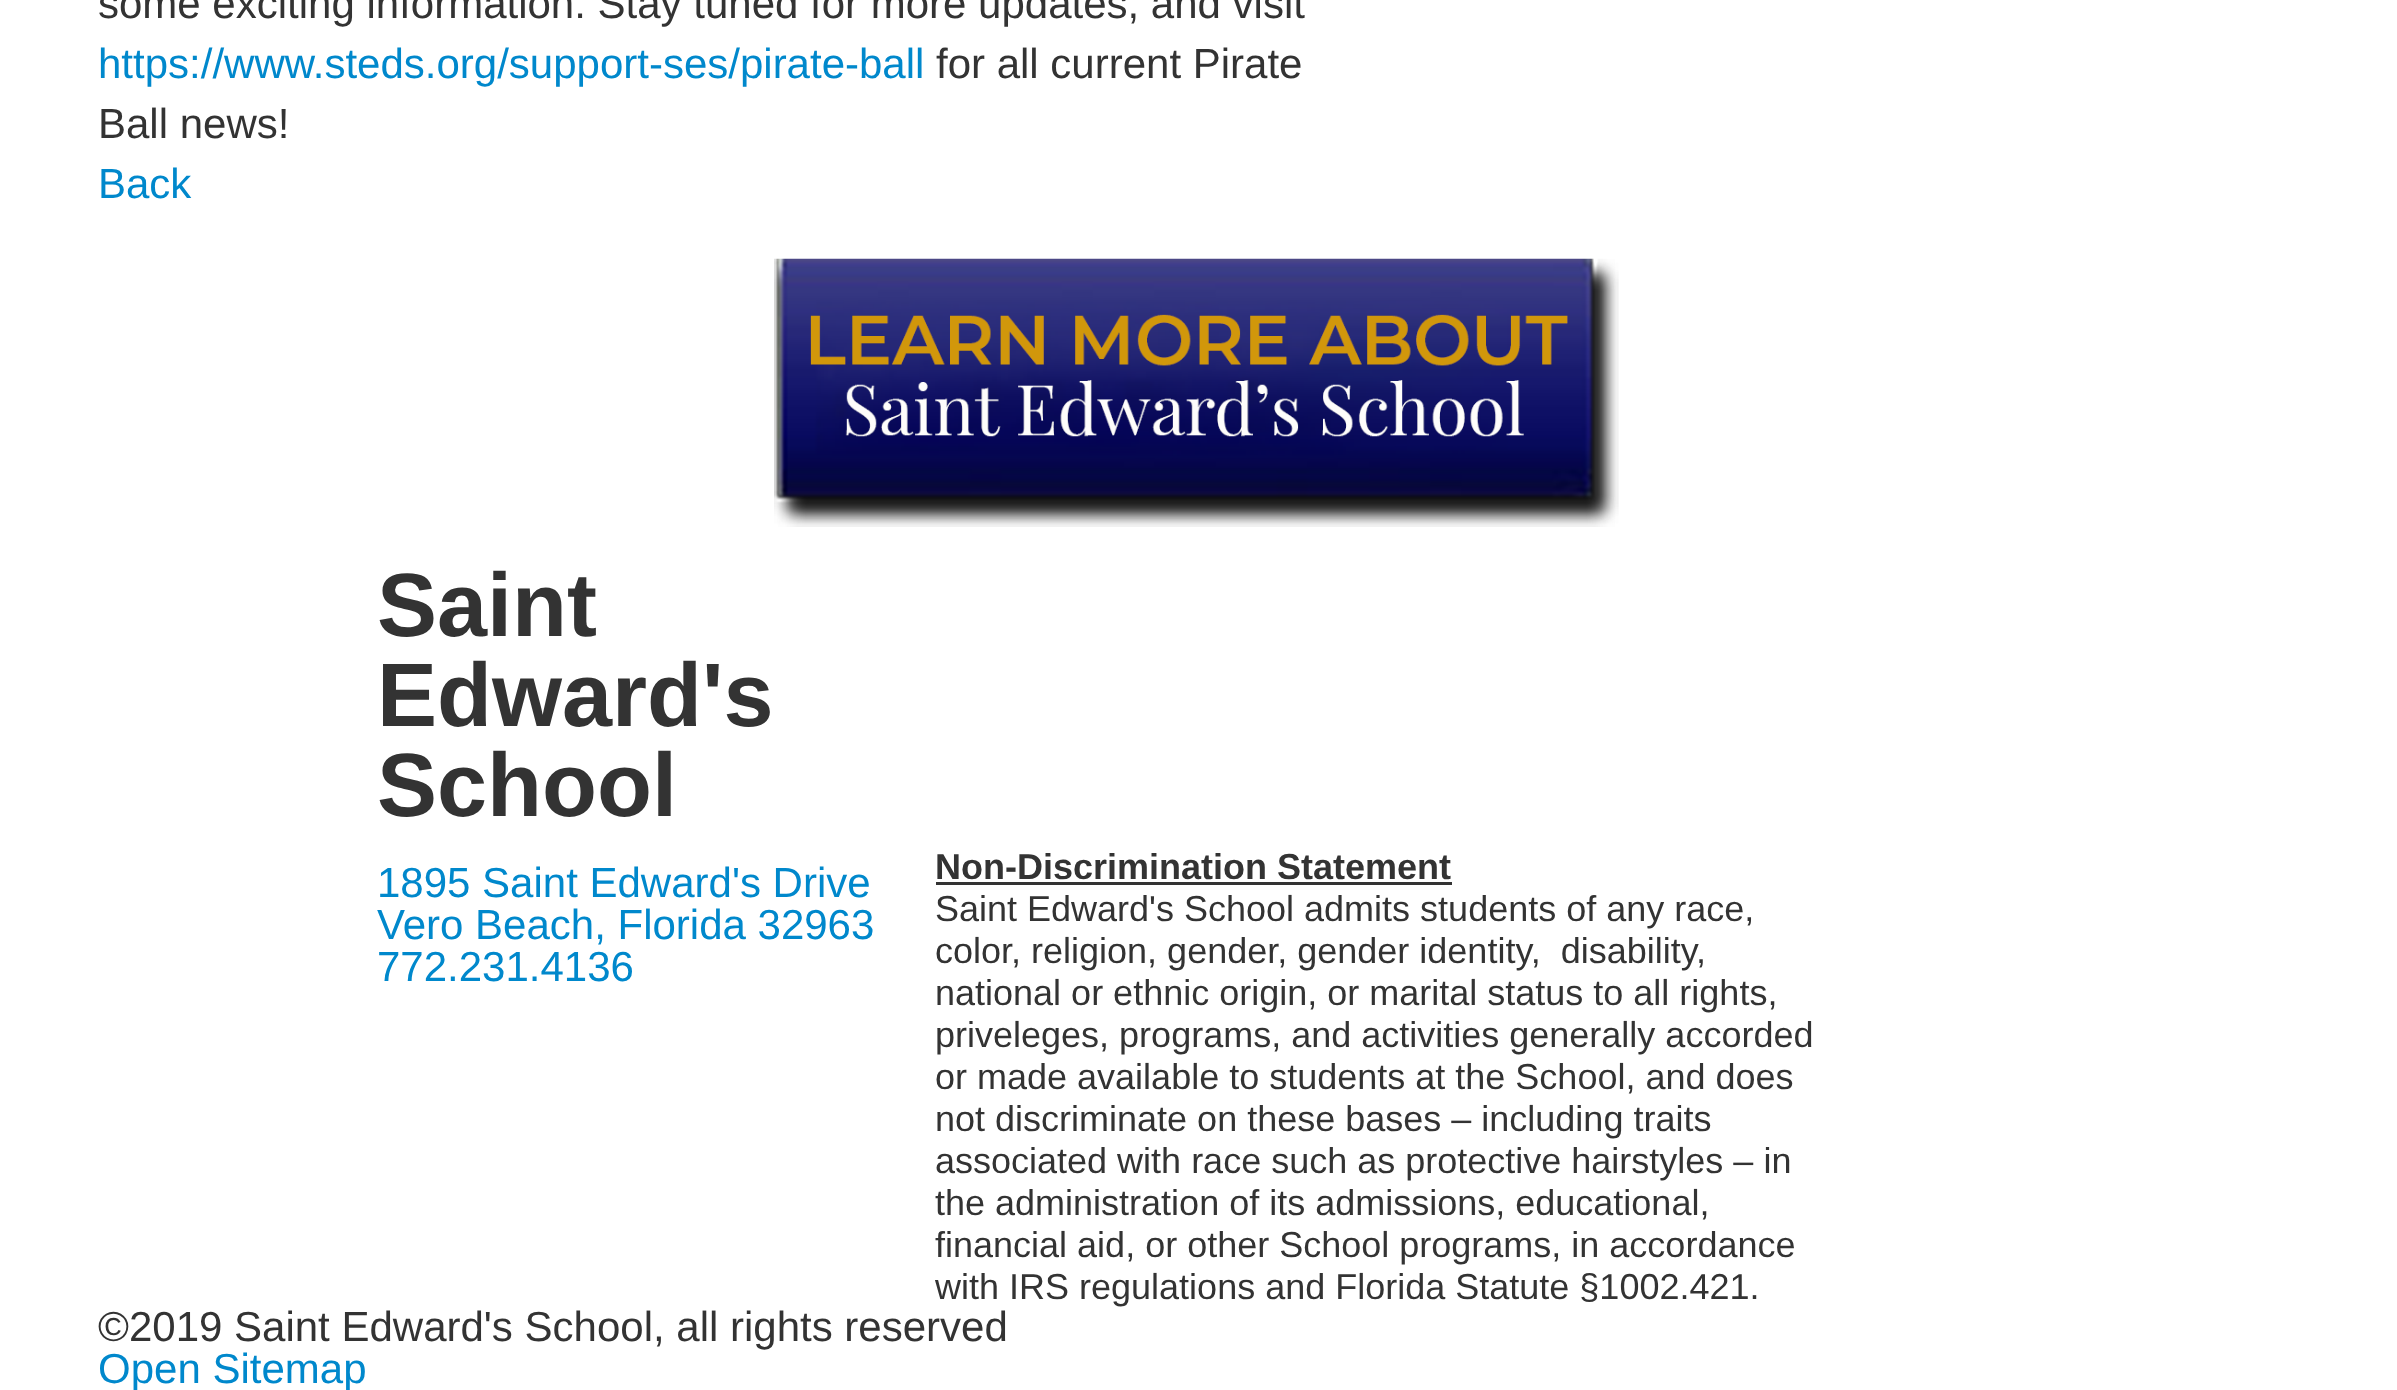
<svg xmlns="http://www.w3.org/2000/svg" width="2397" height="1390">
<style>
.a{font:42px Liberation Sans;fill:#333}
.b{font:42px Liberation Sans;fill:#08c}
.c{font:bold 90px Liberation Sans;fill:#333}
.d{font:bold 36px Liberation Sans;fill:#333}
.e{font:36px Liberation Sans;fill:#333}
</style>
<rect width="100%" height="100%" fill="#fff"/>
<image href="1.png" x="774" y="258" width="845" height="269"/>
<path fill="#333" d="M936 882h516v3H936z"/>
<text class="a" x="98" y="18">some exciting information. Stay tuned for more updates, and visit</text>
<text class="b" x="98" y="78">https://www.steds.org/support-ses/pirate-ball</text>
<text class="a" x="936" y="78">for all current Pirate</text>
<text class="a" x="98" y="138">Ball news!</text>
<text class="b" x="98" y="198">Back</text>
<text class="c" x="377" y="636">Saint</text>
<text class="c" x="377" y="726">Edward's</text>
<text class="c" x="377" y="816">School</text>
<text class="b" x="377" y="897">1895 Saint Edward's Drive</text>
<text class="b" x="377" y="939">Vero Beach, Florida 32963</text>
<text class="b" x="377" y="981">772.231.4136</text>
<text class="d" x="935" y="879">Non-Discrimination Statement</text>
<text class="e" x="935" y="921">Saint Edward's School admits students of any race,</text>
<text class="e" xml:space="preserve" x="935" y="963">color, religion, gender, gender identity,  disability,</text>
<text class="e" x="935" y="1005">national or ethnic origin, or marital status to all rights,</text>
<text class="e" x="935" y="1047">priveleges, programs, and activities generally accorded</text>
<text class="e" x="935" y="1089">or made available to students at the School, and does</text>
<text class="e" x="935" y="1131">not discriminate on these bases – including traits</text>
<text class="e" x="935" y="1173">associated with race such as protective hairstyles – in</text>
<text class="e" x="935" y="1215">the administration of its admissions, educational,</text>
<text class="e" x="935" y="1257">financial aid, or other School programs, in accordance</text>
<text class="e" x="935" y="1299">with IRS regulations and Florida Statute §1002.421.</text>
<text class="a" x="98" y="1341">©2019 Saint Edward's School, all rights reserved</text>
<text class="b" x="98" y="1383">Open Sitemap</text>
</svg>
